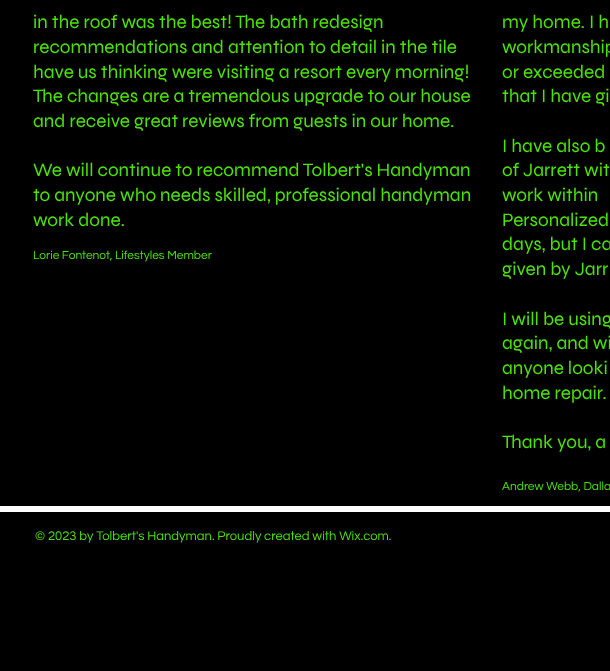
<svg xmlns="http://www.w3.org/2000/svg" width="610" height="671">
<style>
.a{font:19px Syne;fill:#4ce300}
.b{font:12px Questrial;fill:#4ce300}
.c{font:13px Questrial;fill:#4ce300}
</style>
<rect width="100%" height="100%" fill="#000"/>
<path fill="#fff" d="M0 506h610v6H0z"/>
<text class="a" x="33" y="28">in the roof was the best! The bath redesign</text>
<text class="a" x="33" y="53">recommendations and attention to detail in the tile</text>
<text class="a" x="33" y="78">have us thinking were visiting a resort every morning!</text>
<text class="a" x="33" y="102">The changes are a tremendous upgrade to our house</text>
<text class="a" x="33" y="127">and receive great reviews from guests in our home.</text>
<text class="a" x="33" y="176">We will continue to recommend Tolbert's Handyman</text>
<text class="a" x="33" y="201">to anyone who needs skilled, professional handyman</text>
<text class="a" x="33" y="226">work done.</text>
<text class="b" x="33" y="259">Lorie Fontenot, Lifestyles Member</text>
<text class="a" x="502" y="28">my home. I h</text>
<text class="a" x="502" y="53">workmanship</text>
<text class="a" x="502" y="78">or exceeded</text>
<text class="a" x="502" y="102">that I have gi</text>
<text class="a" x="502" y="152">I have also b</text>
<text class="a" x="502" y="176">of Jarrett wit</text>
<text class="a" x="502" y="201">work within</text>
<text class="a" x="502" y="226">Personalized</text>
<text class="a" x="502" y="250">days, but I ca</text>
<text class="a" x="502" y="275">given by Jarr</text>
<text class="a" x="502" y="325">I will be using</text>
<text class="a" x="502" y="349">again, and wi</text>
<text class="a" x="502" y="374">anyone looki</text>
<text class="a" x="502" y="399">home repair.</text>
<text class="a" x="502" y="448">Thank you, a</text>
<text class="b" x="502" y="490">Andrew Webb, Dalla</text>
<text class="c" x="35" y="540">© 2023 by Tolbert's Handyman. Proudly created with Wix.com.</text>
</svg>
